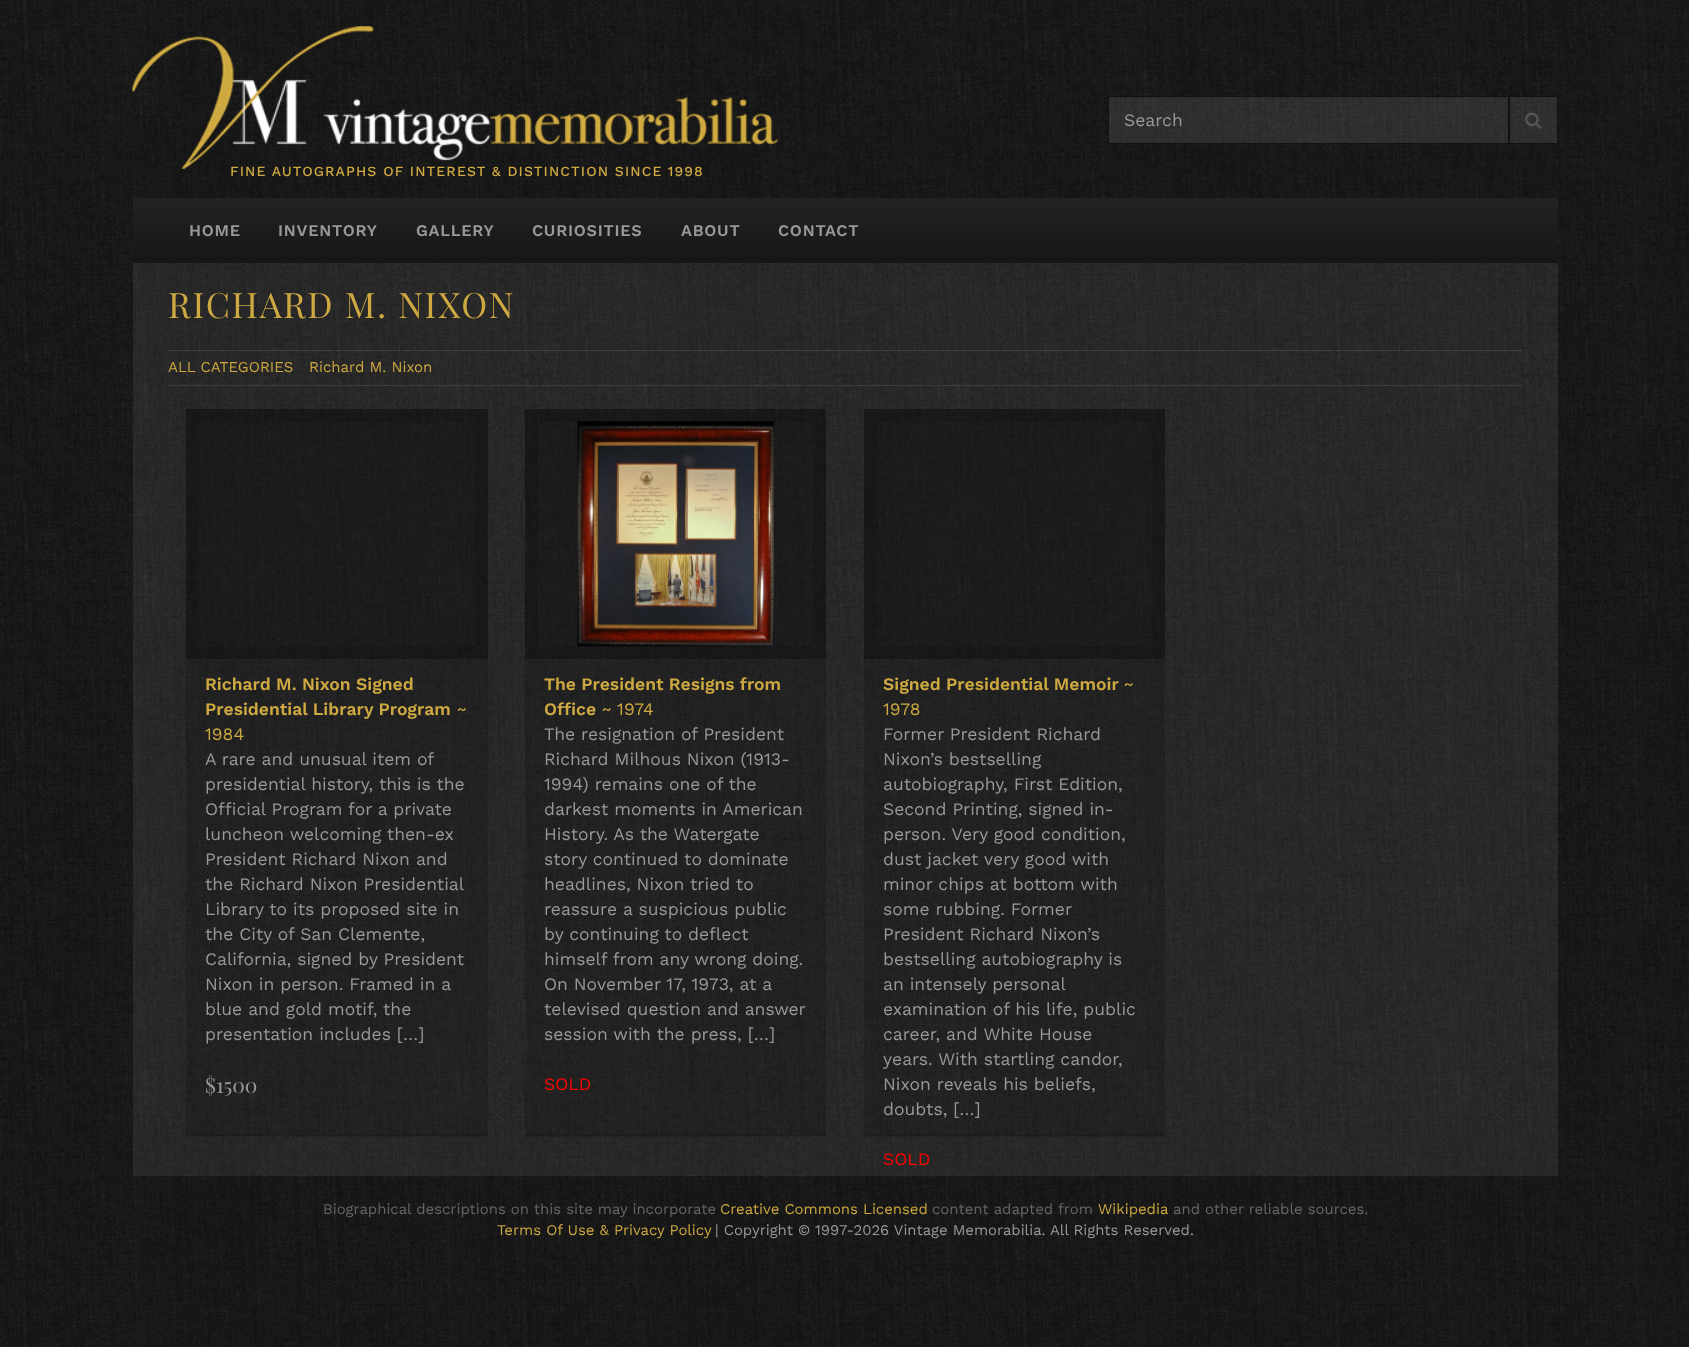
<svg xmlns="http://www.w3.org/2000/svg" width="1689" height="1347">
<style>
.a{font:17.5px Work Sans;fill:#999}
.b{font:500 14px Work Sans;letter-spacing:1.12px;fill:#cea941}
.c{font:600 16.25px Work Sans;letter-spacing:0.75px;fill:#999}
.d{font:35px Playfair Display;letter-spacing:1.75px;fill:#cea941}
.e{font:15px Work Sans;fill:#cea941}
.f{font:600 17.5px Work Sans;fill:#cea941}
.g{font:17.5px Work Sans;fill:#cea941}
.h{font:21px Playfair Display;fill:#999}
.i{font:17.5px Work Sans;fill:#f00}
.j{font:14.9px Work Sans;fill:#666}
.k{font:14.9px Work Sans;fill:#cea941}
.l{font:14.9px Work Sans;fill:#999}
</style>
<defs>
<linearGradient id="g1" gradientUnits="userSpaceOnUse" x1="845" y1="197" x2="845" y2="263"><stop offset="0" stop-color="#232323"/><stop offset="1" stop-color="#161616"/></linearGradient>
</defs>
<rect width="100%" height="100%" fill="#fff"/>
<image href="1.png" x="0" y="0" width="1689" height="1347"/>
<path fill="#ffffff1a" d="M1109 97h399v46H1109z"/>
<path fill="#00000012" d="M1109 98h399v1H1109z"/>
<path fill="none" stroke="#111" d="M1108.5 96.5h400v47H1108.5z"/>
<path fill="#ffffff1a" stroke="#111" d="M1509.5 96.5h48v47H1509.5z"/>
<image href="2.png" x="1525" y="112" width="17" height="17"/>
<image href="3.png" x="132" y="26" width="646" height="143"/>
<path fill="url(#g1)" d="M133 198h1425v65H133z"/>
<path fill="#ffffff12" d="M133 263h1425v913H133z"/>
<path fill="#ffffff1a" d="M168 350h1355v1H168z"/>
<path fill="#ffffff1a" d="M168 385h1355v1H168z"/>
<path fill="#0000004d" d="M186 409h302v250H186z"/>
<path fill="none" stroke="#0000001a" stroke-width="13" d="M192.5 415.5h289v237H192.5z"/>
<path fill="#00000026" d="M186 659h302v477H186z"/>
<path fill="#0000001a" d="M186 1134h302v3H186z"/>
<path fill="#0000004d" d="M525 409h301v250H525z"/>
<image href="4.png" x="577" y="421" width="197" height="226"/>
<path fill="none" stroke="#0000001a" stroke-width="13" d="M531.5 415.5h288v237H531.5z"/>
<path fill="#00000026" d="M525 659h301v477H525z"/>
<path fill="#0000001a" d="M525 1134h301v3H525z"/>
<path fill="#0000004d" d="M864 409h301v250H864z"/>
<path fill="none" stroke="#0000001a" stroke-width="13" d="M870.5 415.5h288v237H870.5z"/>
<path fill="#00000026" d="M864 659h301v477H864z"/>
<path fill="#0000001a" d="M864 1134h301v3H864z"/>
<text class="a" x="1124" y="126">Search</text>
<text class="b" x="230" y="176">FINE AUTOGRAPHS OF INTEREST &amp; DISTINCTION SINCE 1998</text>
<text class="c" x="189" y="236">HOME</text>
<text class="c" x="278" y="236">INVENTORY</text>
<text class="c" x="416" y="236">GALLERY</text>
<text class="c" x="532" y="236">CURIOSITIES</text>
<text class="c" x="681" y="236">ABOUT</text>
<text class="c" x="778" y="236">CONTACT</text>
<text class="d" x="168" y="318">RICHARD M. NIXON</text>
<text class="e" x="168" y="372">ALL CATEGORIES</text>
<text class="e" x="309" y="372">Richard M. Nixon</text>
<text class="f" x="205" y="690">Richard M. Nixon Signed</text>
<text class="f" x="205" y="715">Presidential Library Program</text>
<text class="g" x="457" y="715">~</text>
<text class="g" x="205" y="740">1984</text>
<text class="a" x="205" y="765">A rare and unusual item of</text>
<text class="a" x="205" y="790">presidential history, this is the</text>
<text class="a" x="205" y="815">Official Program for a private</text>
<text class="a" x="205" y="840">luncheon welcoming then-ex</text>
<text class="a" x="205" y="865">President Richard Nixon and</text>
<text class="a" x="205" y="890">the Richard Nixon Presidential</text>
<text class="a" x="205" y="915">Library to its proposed site in</text>
<text class="a" x="205" y="940">the City of San Clemente,</text>
<text class="a" x="205" y="965">California, signed by President</text>
<text class="a" x="205" y="990">Nixon in person. Framed in a</text>
<text class="a" x="205" y="1015">blue and gold motif, the</text>
<text class="a" x="205" y="1040">presentation includes […]</text>
<text class="h" x="205" y="1093">$1500</text>
<text class="f" x="544" y="690">The President Resigns from</text>
<text class="f" x="544" y="715">Office</text>
<text class="g" x="602" y="715">~ 1974</text>
<text class="a" x="544" y="740">The resignation of President</text>
<text class="a" x="544" y="765">Richard Milhous Nixon (1913-</text>
<text class="a" x="544" y="790">1994) remains one of the</text>
<text class="a" x="544" y="815">darkest moments in American</text>
<text class="a" x="544" y="840">History. As the Watergate</text>
<text class="a" x="544" y="865">story continued to dominate</text>
<text class="a" x="544" y="890">headlines, Nixon tried to</text>
<text class="a" x="544" y="915">reassure a suspicious public</text>
<text class="a" x="544" y="940">by continuing to deflect</text>
<text class="a" x="544" y="965">himself from any wrong doing.</text>
<text class="a" x="544" y="990">On November 17, 1973, at a</text>
<text class="a" x="544" y="1015">televised question and answer</text>
<text class="a" x="544" y="1040">session with the press, […]</text>
<text class="i" x="544" y="1090">SOLD</text>
<text class="f" x="883" y="690">Signed Presidential Memoir</text>
<text class="g" x="1124" y="690">~</text>
<text class="g" x="883" y="715">1978</text>
<text class="a" x="883" y="740">Former President Richard</text>
<text class="a" x="883" y="765">Nixon’s bestselling</text>
<text class="a" x="883" y="790">autobiography, First Edition,</text>
<text class="a" x="883" y="815">Second Printing, signed in-</text>
<text class="a" x="883" y="840">person. Very good condition,</text>
<text class="a" x="883" y="865">dust jacket very good with</text>
<text class="a" x="883" y="890">minor chips at bottom with</text>
<text class="a" x="883" y="915">some rubbing. Former</text>
<text class="a" x="883" y="940">President Richard Nixon’s</text>
<text class="a" x="883" y="965">bestselling autobiography is</text>
<text class="a" x="883" y="990">an intensely personal</text>
<text class="a" x="883" y="1015">examination of his life, public</text>
<text class="a" x="883" y="1040">career, and White House</text>
<text class="a" x="883" y="1065">years. With startling candor,</text>
<text class="a" x="883" y="1090">Nixon reveals his beliefs,</text>
<text class="a" x="883" y="1115">doubts, […]</text>
<text class="i" x="883" y="1165">SOLD</text>
<text class="j" x="323" y="1214">Biographical descriptions on this site may incorporate</text>
<text class="k" x="720" y="1214">Creative Commons Licensed</text>
<text class="j" x="932" y="1214">content adapted from</text>
<text class="k" x="1098" y="1214">Wikipedia</text>
<text class="j" x="1173" y="1214">and other reliable sources.</text>
<text class="k" x="497" y="1235">Terms Of Use &amp; Privacy Policy</text>
<text class="l" x="715" y="1235">| Copyright © 1997-2026 Vintage Memorabilia. All Rights Reserved.</text>
</svg>
